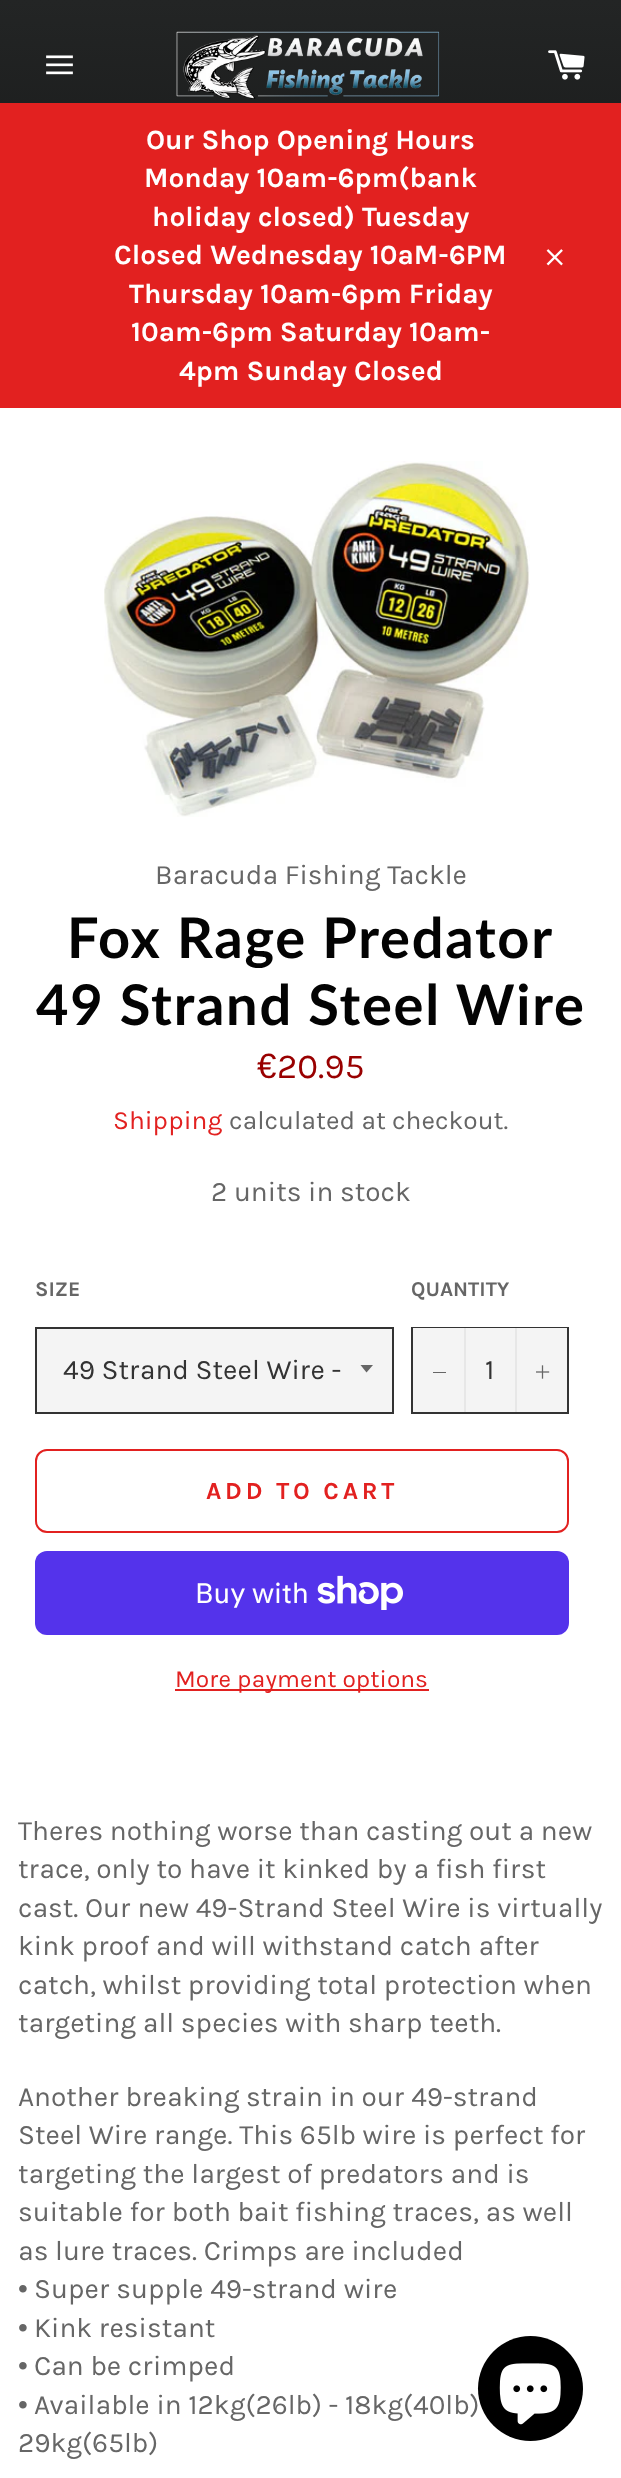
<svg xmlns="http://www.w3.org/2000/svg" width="621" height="2478">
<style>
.a{font:bold 28px Karla;fill:#fff}
.b{font:28px Karla;fill:#666}
.c{font:bold 56px Lato;letter-spacing:1.75px;fill:#030303}
.d{font:35px Liberation Sans;fill:#900}
.e{font:35px Karla;fill:#900}
.f{font:26.25px Karla;fill:#e22120}
.g{font:26.25px Karla;fill:#666}
.h{font:bold 21px Karla;fill:#666}
.i{font:28px Karla;fill:#333}
.j{font:bold 24.5px Karla;letter-spacing:3.75px;fill:#e22120}
.k{font:28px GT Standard;fill:#fff}
.l{font:24.5px Karla;fill:#e22120}
.m{font:28px Liberation Sans;fill:#666}
</style>
<defs>
<linearGradient id="g1" gradientUnits="userSpaceOnUse" x1="311" y1="408" x2="311" y2="0"><stop offset="0" stop-color="#111"/><stop offset="1" stop-color="#232525"/></linearGradient>
</defs>
<rect width="100%" height="100%" fill="#fff"/>
<path fill="url(#g1)" d="M0 0h621v103H0z"/>
<image href="1.png" x="46" y="55" width="27" height="20"/>
<image href="2.png" x="176" y="31" width="264" height="68"/>
<image href="3.png" x="548" y="50" width="37" height="30"/>
<path fill="#e22120" d="M0 103h621v305H0z"/>
<image href="4.png" x="546" y="249" width="17" height="17"/>
<image href="5.png" x="104" y="461" width="426" height="356"/>
<path fill="#f4f4f4" d="M37 1329h355v83H37z"/>
<path fill="#666" d="M360.5 1365l6 7.5l6.5-7.5z"/>
<path fill="none" stroke="#333" stroke-width="2" d="M36 1328h357v85H36z"/>
<path fill="none" stroke="#333" stroke-width="2" d="M412 1328h156v85H412z"/>
<path fill="#f4f4f4" d="M413 1328h154v84H413z"/>
<path fill="#e7e7e7" d="M464 1328h2v84H464z"/>
<path fill="#666" d="M433 1372h13v1H433z"/>
<path fill="#e7e7e7" d="M515 1328h2v84H515z"/>
<image href="6.png" x="536" y="1365" width="14" height="14"/>
<rect fill="none" stroke="#e22120" stroke-width="2" x="36" y="1450" width="532" height="82" rx="11"/>
<rect fill="#5433eb" x="35" y="1551" width="534" height="84" rx="12"/>
<image href="7.png" x="317" y="1575" width="86" height="35"/>
<path fill="#e22120" d="M175 1689h254v2H175z"/>
<circle fill="#000" cx="530.5" cy="2388.5" r="52.5"/>
<image href="8.png" x="499" y="2363" width="62" height="62"/>
<text class="a" x="146" y="149">Our Shop Opening Hours</text>
<text class="a" x="144" y="187">Monday 10am-6pm(bank</text>
<text class="a" x="152" y="226">holiday closed) Tuesday</text>
<text class="a" x="114" y="264">Closed Wednesday 10aM-6PM</text>
<text class="a" x="129" y="303">Thursday 10am-6pm Friday</text>
<text class="a" x="131" y="341">10am-6pm Saturday 10am-</text>
<text class="a" x="179" y="380">4pm Sunday Closed</text>
<text class="b" x="155" y="884">Baracuda Fishing Tackle</text>
<text class="c" x="67" y="958">Fox Rage Predator</text>
<text class="c" x="36" y="1025">49 Strand Steel Wire</text>
<text class="d" x="257" y="1078">€</text>
<text class="e" x="277" y="1078">20.95</text>
<text class="f" x="113" y="1129">Shipping</text>
<text class="g" x="229" y="1129">calculated at checkout.</text>
<text class="b" x="211" y="1201">2 units in stock</text>
<text class="h" x="35" y="1296">SIZE</text>
<text class="i" x="63" y="1379">49 Strand Steel Wire -</text>
<text class="h" x="411" y="1296">QUANTITY</text>
<text class="i" x="485" y="1379">1</text>
<text class="j" x="206" y="1499">ADD TO CART</text>
<text class="k" x="195" y="1603">Buy with</text>
<text class="l" x="175" y="1687">More payment options</text>
<text class="b" x="18" y="1840">Theres nothing worse than casting out a new</text>
<text class="b" x="18" y="1878">trace, only to have it kinked by a fish first</text>
<text class="b" x="18" y="1917">cast. Our new 49-Strand Steel Wire is virtually</text>
<text class="b" x="18" y="1955">kink proof and will withstand catch after</text>
<text class="b" x="18" y="1994">catch, whilst providing total protection when</text>
<text class="b" x="18" y="2032">targeting all species with sharp teeth.</text>
<text class="b" x="18" y="2106">Another breaking strain in our 49-strand</text>
<text class="b" x="18" y="2144">Steel Wire range. This 65lb wire is perfect for</text>
<text class="b" x="18" y="2183">targeting the largest of predators and is</text>
<text class="b" x="18" y="2221">suitable for both bait fishing traces, as well</text>
<text class="b" x="18" y="2260">as lure traces. Crimps are included</text>
<text class="m" x="18" y="2298">•</text>
<text class="b" x="34" y="2298">Super supple 49-strand wire</text>
<text class="m" x="18" y="2337">•</text>
<text class="b" x="34" y="2337">Kink resistant</text>
<text class="m" x="18" y="2375">•</text>
<text class="b" x="34" y="2375">Can be crimped</text>
<text class="m" x="18" y="2414">•</text>
<text class="b" x="34" y="2414">Available in 12kg(26lb) - 18kg(40lb)</text>
<text class="b" x="18" y="2452">29kg(65lb)</text>
</svg>
